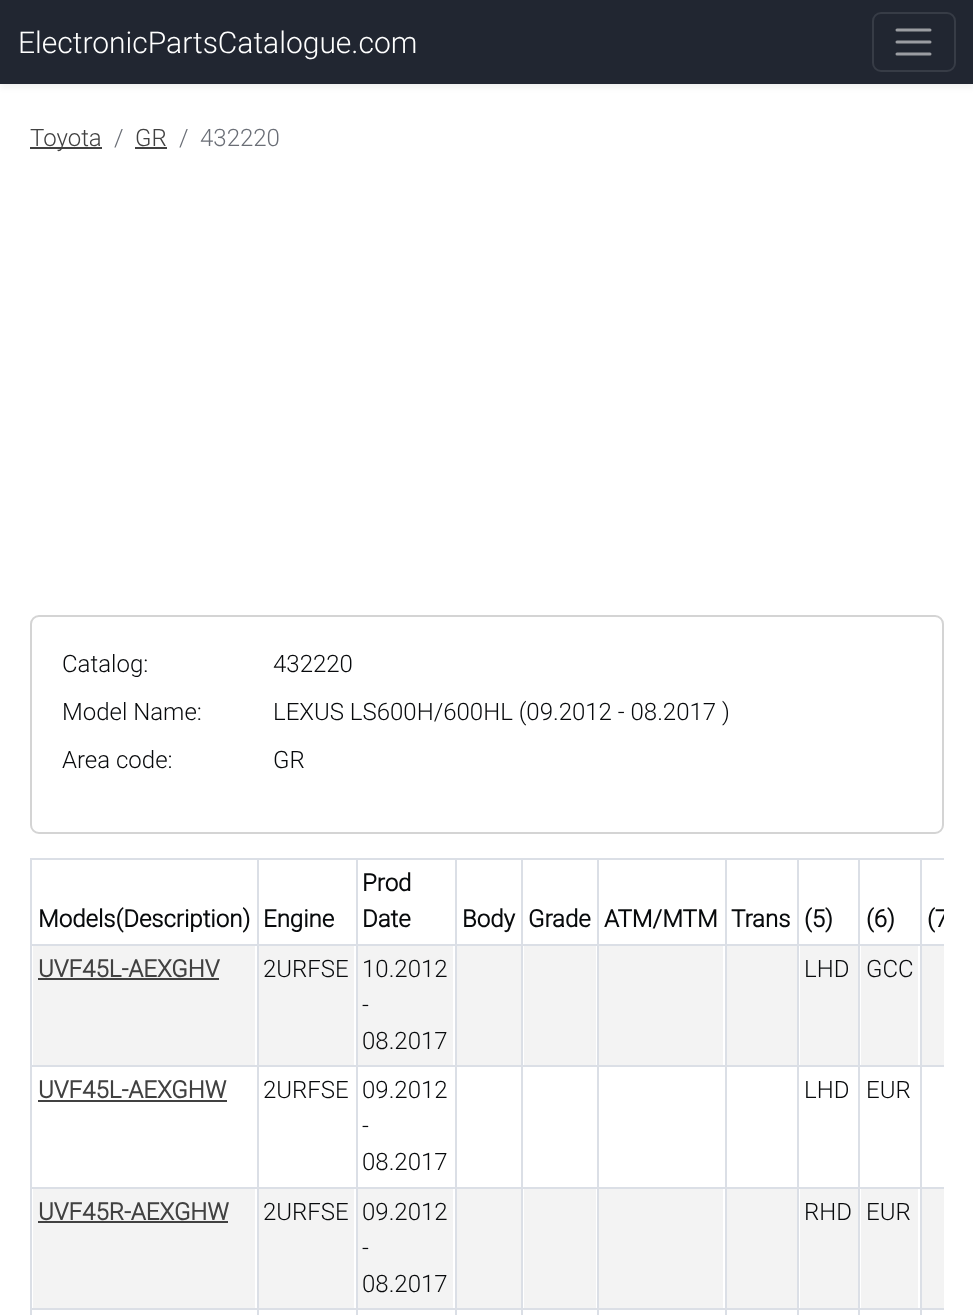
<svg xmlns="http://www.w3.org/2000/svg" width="973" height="1315">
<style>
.a{font:300 30px Roboto;fill:#fff}
.b{font:300 24px Roboto;fill:#414141}
.c{font:300 24px Roboto;fill:#6a6e76}
.d{font:300 24px Roboto;fill:#080a0c}
.e{font:bold 24px Roboto;fill:#080a0c}
.f{font:bold 24px Roboto;fill:#414141}
</style>
<defs>
<clipPath id="clip1"><path d="M30 858h914v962H30z"/></clipPath>
</defs>
<rect width="100%" height="100%" fill="#fff"/>
<path fill="#080a0c12" filter="blur(3px)" d="M0 3h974v84H0z"/>
<path fill="#212631" d="M0 0h973v84H0z"/>
<rect fill="none" stroke="#373c46" stroke-width="2" x="873" y="13" width="82" height="58" rx="8"/>
<path fill="none" stroke="#9b9da2" stroke-width="3" stroke-linecap="round" d="M897 30h33m-33 12h33m-33 12h33"/>
<path fill="#414141" d="M30 147h72v2H30z"/>
<path fill="#414141" d="M135 147h32v2H135z"/>
<rect fill="none" stroke="#d4d4d4" stroke-width="2" x="31" y="616" width="912" height="217" rx="8"/>
<path fill="#dbdfe6" d="M30 858h914v2H30z"/>
<path fill="#dbdfe6" d="M30 1308h914v2H30z"/>
<path fill="#dbdfe6" d="M30 944h914v2H30z"/>
<path fill="#dbdfe6" d="M30 1065h914v2H30z"/>
<path fill="#dbdfe6" d="M30 1187h914v2H30z"/>
<path fill="#dbdfe6" d="M30 858h2v457H30z"/>
<path fill="#dbdfe6" d="M257 858h2v457H257z"/>
<path fill="#dbdfe6" d="M356 858h2v457H356z"/>
<path fill="#dbdfe6" d="M455 858h2v457H455z"/>
<path fill="#dbdfe6" d="M521 858h2v457H521z"/>
<path fill="#dbdfe6" d="M597 858h2v457H597z"/>
<path fill="#dbdfe6" d="M725 858h2v457H725z"/>
<path fill="#dbdfe6" d="M797 858h2v457H797z"/>
<path fill="#dbdfe6" d="M858 858h2v457H858z"/>
<path fill="#dbdfe6" d="M920 858h2v457H920z"/>
<path fill="#f3f3f3" d="M33 946h222v119H33z"/>
<path fill="#414141" d="M38 978h181v2H38z"/>
<path fill="#f3f3f3" d="M259 946h95v119H259z"/>
<path fill="#f3f3f3" d="M358 946h95v119H358z"/>
<path fill="#f3f3f3" d="M457 946h64v119H457z"/>
<path fill="#f3f3f3" d="M524 946h72v119H524z"/>
<path fill="#f3f3f3" d="M599 946h124v119H599z"/>
<path fill="#f3f3f3" d="M727 946h70v119H727z"/>
<path fill="#f3f3f3" d="M800 946h58v119H800z"/>
<path fill="#f3f3f3" d="M861 946h57v119H861z"/>
<path fill="#f3f3f3" d="M922 946h22v119H922z"/>
<path fill="#414141" d="M38 1100h189v2H38z"/>
<path fill="#f3f3f3" d="M33 1189h222v119H33z"/>
<path fill="#414141" d="M38 1221h190v2H38z"/>
<path fill="#f3f3f3" d="M259 1189h95v119H259z"/>
<path fill="#f3f3f3" d="M358 1189h95v119H358z"/>
<path fill="#f3f3f3" d="M457 1189h64v119H457z"/>
<path fill="#f3f3f3" d="M524 1189h72v119H524z"/>
<path fill="#f3f3f3" d="M599 1189h124v119H599z"/>
<path fill="#f3f3f3" d="M727 1189h70v119H727z"/>
<path fill="#f3f3f3" d="M800 1189h58v119H800z"/>
<path fill="#f3f3f3" d="M861 1189h57v119H861z"/>
<path fill="#f3f3f3" d="M922 1189h22v119H922z"/>
<text class="a" x="18" y="53">ElectronicPartsCatalogue.com</text>
<text class="b" x="30" y="146">Toyota</text>
<text class="c" x="114" y="146">/</text>
<text class="b" x="135" y="146">GR</text>
<text class="c" x="179" y="146">/</text>
<text class="c" x="200" y="146">432220</text>
<text class="d" x="62" y="672">Catalog:</text>
<text class="d" x="273" y="672">432220</text>
<text class="d" x="62" y="720">Model Name:</text>
<text class="d" x="273" y="720">LEXUS LS600H/600HL (09.2012 - 08.2017 )</text>
<text class="d" x="62" y="768">Area code:</text>
<text class="d" x="273" y="768">GR</text>
<text class="e" x="38" y="927">Models(Description)</text>
<text class="e" x="263" y="927">Engine</text>
<text class="e" x="362" y="891">Prod</text>
<text class="e" x="362" y="927">Date</text>
<text class="e" x="462" y="927">Body</text>
<text class="e" x="528" y="927">Grade</text>
<text class="e" x="604" y="927">ATM/MTM</text>
<text class="e" x="731" y="927">Trans</text>
<text class="e" x="804" y="927">(5)</text>
<text class="e" x="866" y="927">(6)</text>
<g clip-path="url(#clip1)">
<text class="e" x="927" y="927">(7</text>
</g>
<text class="f" x="38" y="977">UVF45L-AEXGHV</text>
<text class="d" x="263" y="977">2URFSE</text>
<text class="d" x="362" y="977">10.2012</text>
<text class="d" x="362" y="1013">-</text>
<text class="d" x="362" y="1049">08.2017</text>
<text class="d" x="804" y="977">LHD</text>
<text class="d" x="866" y="977">GCC</text>
<text class="f" x="38" y="1098">UVF45L-AEXGHW</text>
<text class="d" x="263" y="1098">2URFSE</text>
<text class="d" x="362" y="1098">09.2012</text>
<text class="d" x="362" y="1134">-</text>
<text class="d" x="362" y="1170">08.2017</text>
<text class="d" x="804" y="1098">LHD</text>
<text class="d" x="866" y="1098">EUR</text>
<text class="f" x="38" y="1220">UVF45R-AEXGHW</text>
<text class="d" x="263" y="1220">2URFSE</text>
<text class="d" x="362" y="1220">09.2012</text>
<text class="d" x="362" y="1256">-</text>
<text class="d" x="362" y="1292">08.2017</text>
<text class="d" x="804" y="1220">RHD</text>
<text class="d" x="866" y="1220">EUR</text>
</svg>
